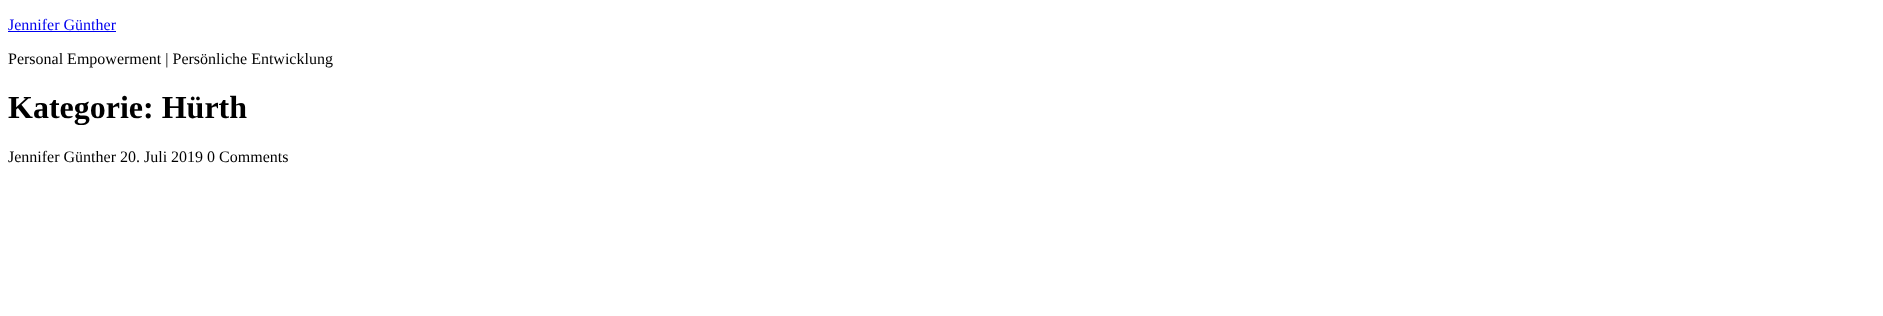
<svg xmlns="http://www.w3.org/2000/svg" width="1883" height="316">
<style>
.a{font:16px Liberation Serif;fill:#00e}
.b{font:16px Liberation Serif;fill:#000}
.c{font:bold 32px Liberation Serif;fill:#000}
</style>
<rect width="100%" height="100%" fill="#fff"/>
<path fill="#00e" d="M8 31h108v1H8z"/>
<text class="a" x="8" y="30">Jennifer Günther</text>
<text class="b" x="8" y="64">Personal Empowerment | Persönliche Entwicklung</text>
<text class="c" x="8" y="118">Kategorie: Hürth</text>
<text class="b" x="8" y="162">Jennifer Günther 20. Juli 2019 0 Comments</text>
</svg>
